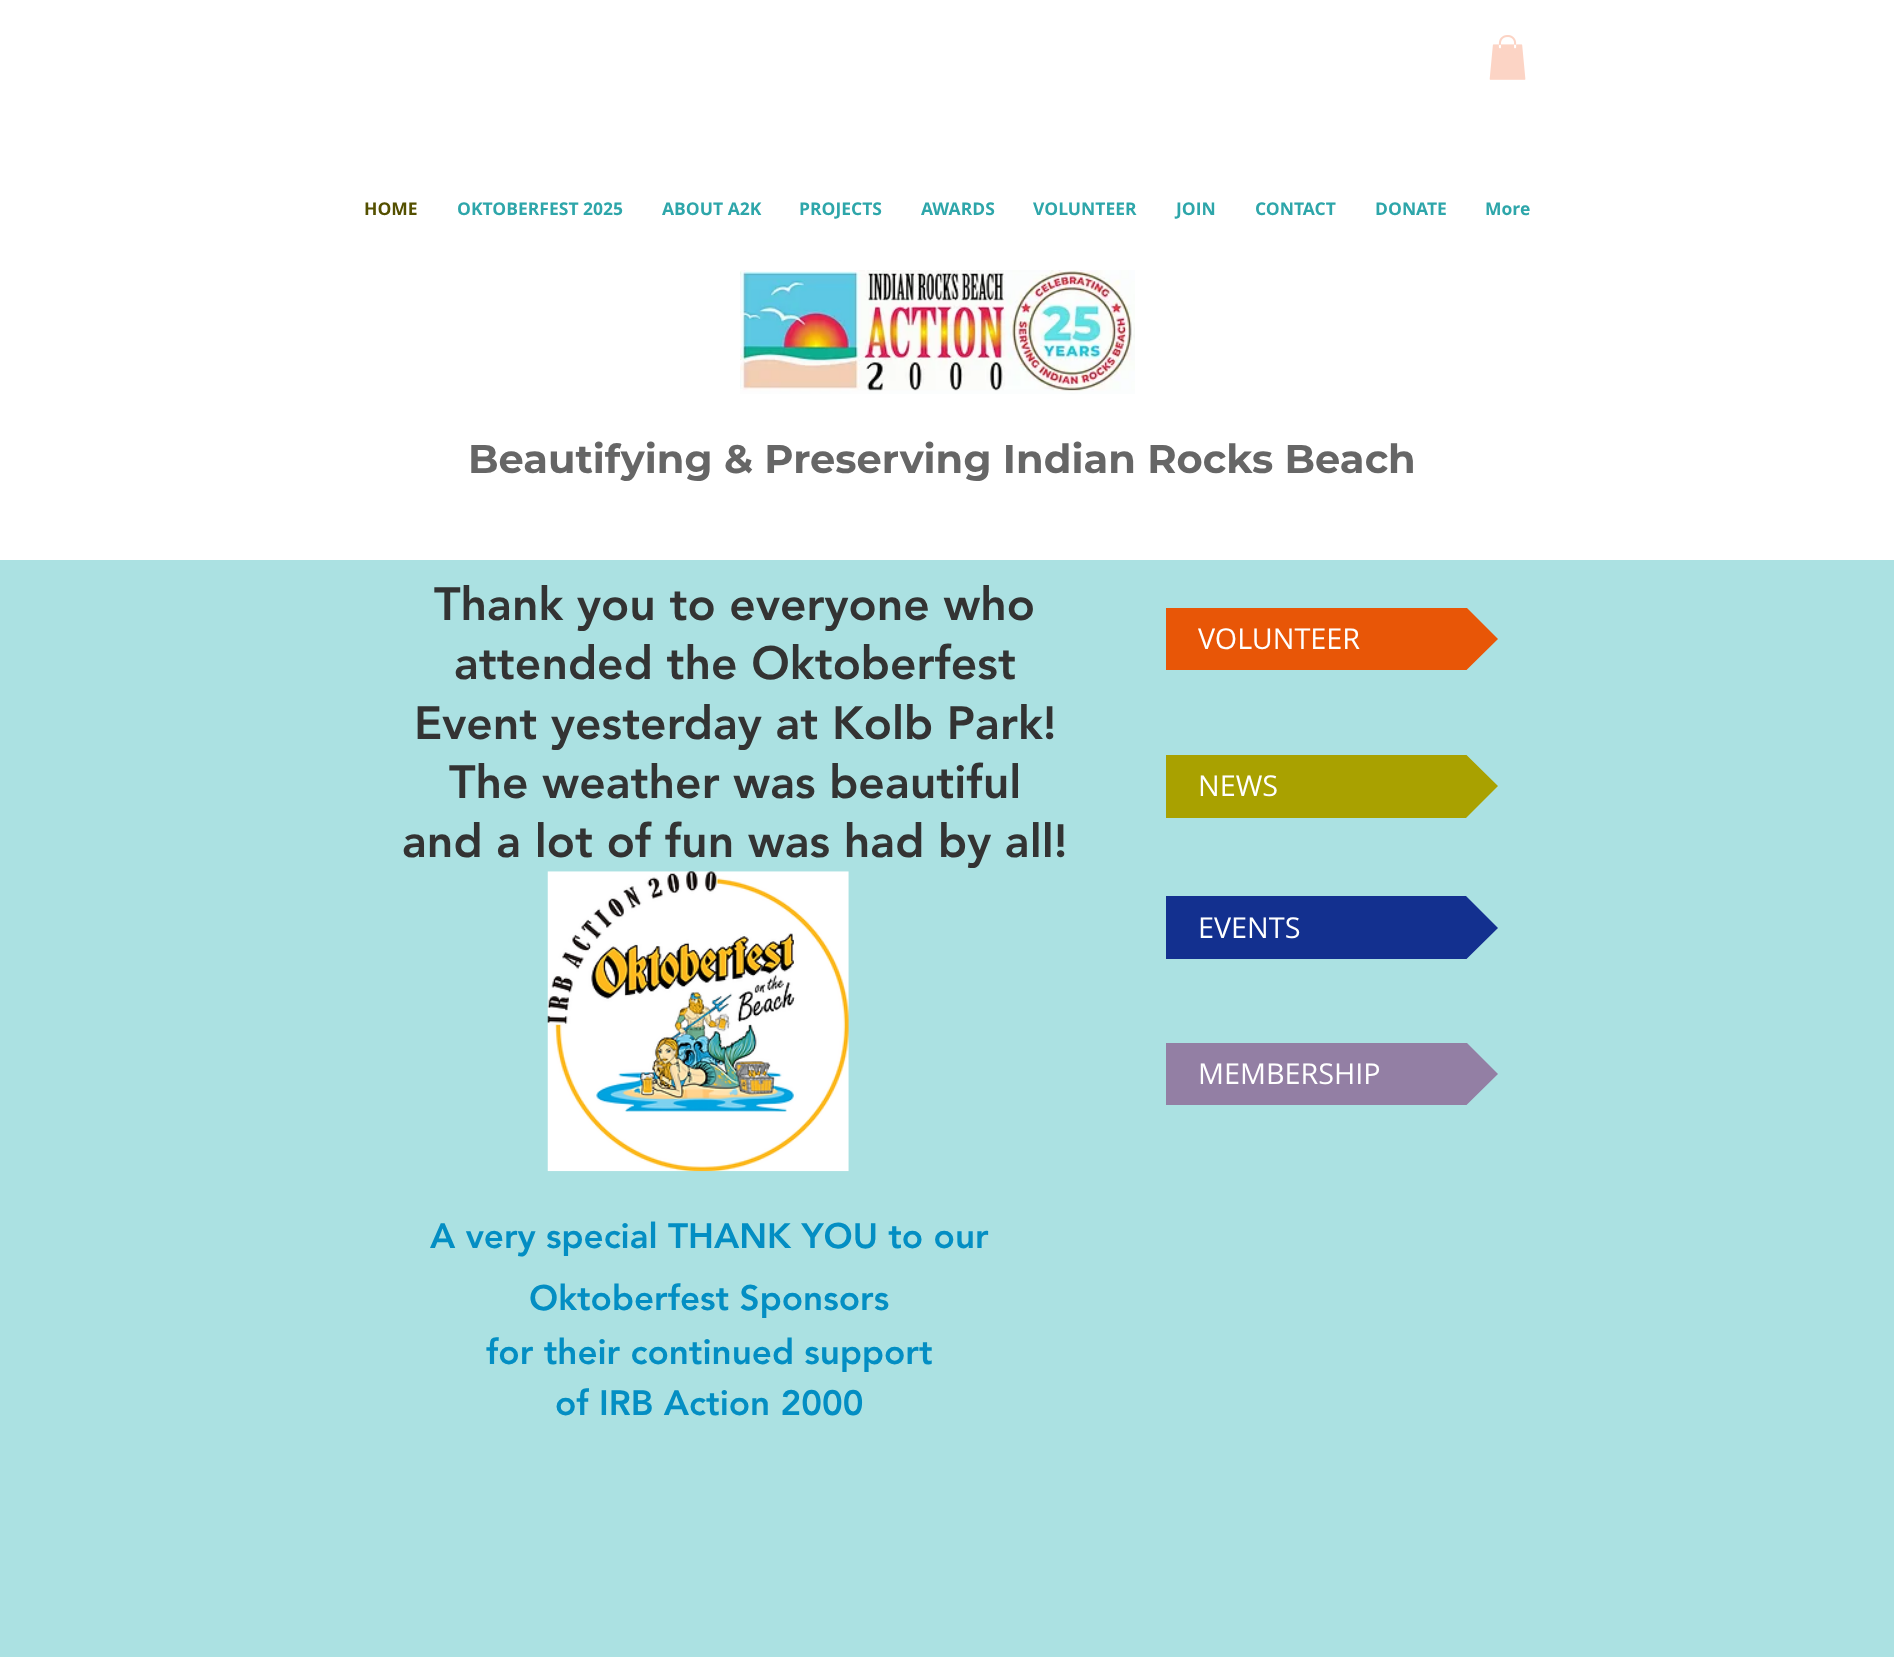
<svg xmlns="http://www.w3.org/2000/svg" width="1894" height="1657">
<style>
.a{font:bold 17.5px Open Sans;fill:#545000}
.b{font:bold 17.5px Open Sans;fill:#2ea6aa}
.c{font:bold 40px Montserrat;fill:#666}
.d{font:900 46.25px 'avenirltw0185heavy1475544';fill:#333}
.e{font:28.75px Open Sans;fill:#fff}
.f{font:900 35px 'avenirltw0185heavy1475544';fill:#038ec3}
</style>
<defs>
<clipPath id="clip1"><path d="M1166 608h332v62H1166z"/></clipPath>
<clipPath id="clip2"><path d="M1166 755h332v63H1166z"/></clipPath>
<clipPath id="clip3"><path d="M1166 896h332v63H1166z"/></clipPath>
<clipPath id="clip4"><path d="M1166 1043h332v62H1166z"/></clipPath>
</defs>
<rect width="100%" height="100%" fill="#abe1e2"/>
<path fill="#fff" d="M0 0h1894v560H0z"/>
<image href="1.png" x="1489" y="35" width="37" height="45"/>
<image href="2.png" x="740" y="270" width="395" height="124"/>
<path fill="#e85607" d="M1166 608h269v62H1166z"/>
<g clip-path="url(#clip1)">
<path fill="#e85607" d="M1498 639h-63v-63zm-63 0h63l-63 62z"/>
</g>
<path fill="#a9a100" d="M1166 755h269v63H1166z"/>
<g clip-path="url(#clip2)">
<path fill="#a9a100" d="M1498 786h-63v-62zm-63 0h63l-63 63z"/>
</g>
<image href="3.png" x="547" y="871" width="302" height="301"/>
<path fill="#13308f" d="M1166 896h269v63H1166z"/>
<g clip-path="url(#clip3)">
<path fill="#13308f" d="M1498 928h-63v-63zm-63 0h63l-63 62z"/>
</g>
<path fill="#937fa4" d="M1166 1043h269v62H1166z"/>
<g clip-path="url(#clip4)">
<path fill="#937fa4" d="M1498 1074h-63v-63zm-63 0h63l-63 62z"/>
</g>
<text class="a" x="364" y="215">HOME</text>
<text class="b" x="457" y="215">OKTOBERFEST 2025</text>
<text class="b" x="662" y="215">ABOUT A2K</text>
<text class="b" x="799" y="215">PROJECTS</text>
<text class="b" x="921" y="215">AWARDS</text>
<text class="b" x="1033" y="215">VOLUNTEER</text>
<text class="b" x="1176" y="215">JOIN</text>
<text class="b" x="1255" y="215">CONTACT</text>
<text class="b" x="1375" y="215">DONATE</text>
<text class="b" x="1485" y="215">More</text>
<text class="c" x="468" y="473">Beautifying &amp; Preserving Indian Rocks Beach</text>
<text class="d" x="434" y="620">Thank you to everyone who</text>
<text class="d" x="454" y="679">attended the Oktoberfest</text>
<text class="d" x="414" y="739">Event yesterday at Kolb Park!</text>
<text class="d" x="449" y="798">The weather was beautiful</text>
<text class="d" x="402" y="857">and a lot of fun was had by all!</text>
<text class="e" x="1198" y="649">VOLUNTEER</text>
<text class="e" x="1198" y="796">NEWS</text>
<text class="e" x="1198" y="938">EVENTS</text>
<text class="e" x="1198" y="1084">MEMBERSHIP</text>
<text class="f" x="430" y="1248">A very special THANK YOU to our</text>
<text class="f" x="529" y="1310">Oktoberfest Sponsors</text>
<text class="f" x="486" y="1364">for their continued support</text>
<text class="f" x="555" y="1415">of IRB Action 2000</text>
</svg>
